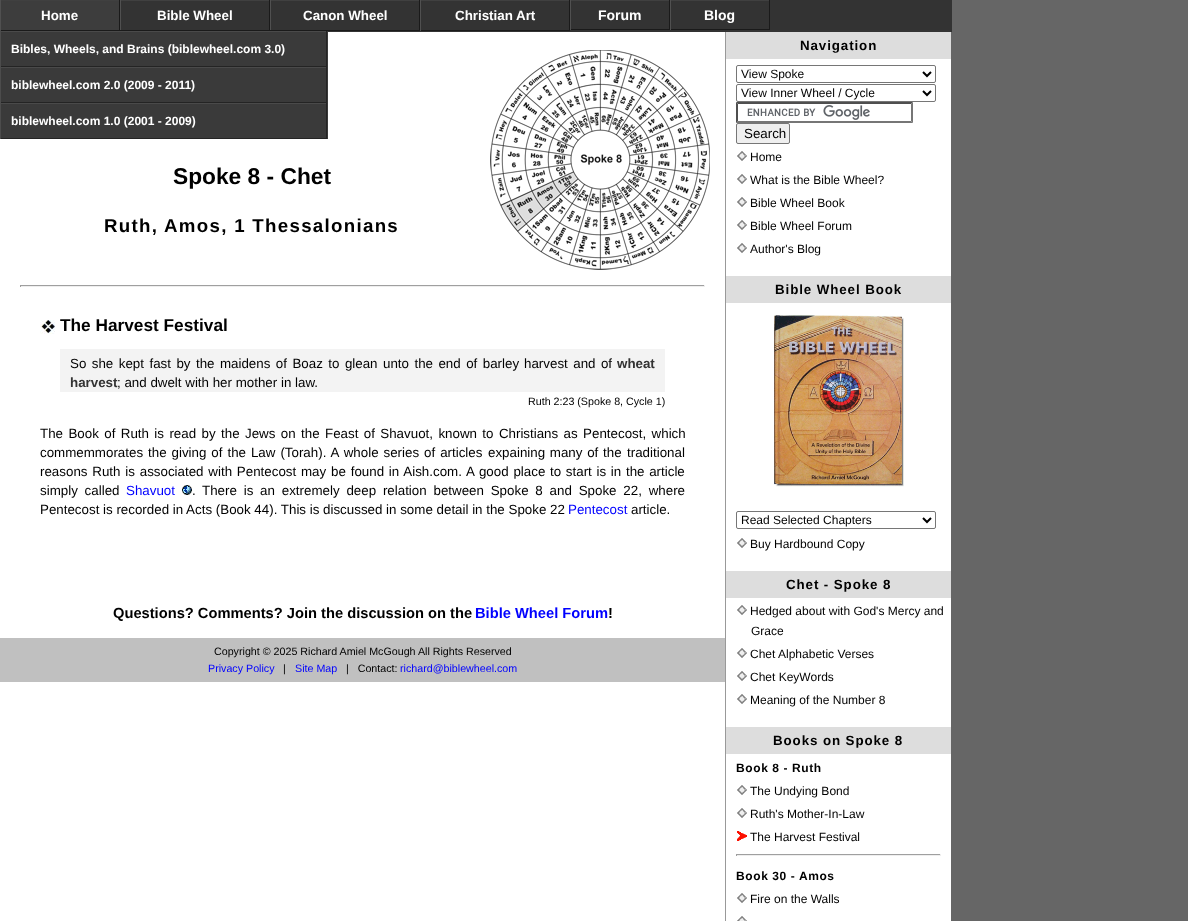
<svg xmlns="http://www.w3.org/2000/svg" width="1188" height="921">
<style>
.a{font:bold 13.35px Liberation Sans;fill:#fff}
.b{font:bold 12px Liberation Sans;fill:#fff}
.c{font:bold 14px Liberation Sans;fill:#fff}
.d{font:bold 22.75px Liberation Sans;fill:#000}
.e{font:bold 18.7px Liberation Sans;letter-spacing:1.3px;fill:#000}
.f{font:bold 17.25px Liberation Sans;fill:#000}
.g{font:13.35px Liberation Sans;fill:#000}
.h{font:bold 13.35px Liberation Sans;fill:#333}
.i{font:10.7px Liberation Sans;fill:#000}
.j{font:13.35px Liberation Sans;fill:#00f}
.k{font:bold 14.7px Liberation Sans;fill:#000}
.l{font:bold 14.7px Liberation Sans;fill:#00f}
.m{font:10.7px Liberation Sans;fill:#00f}
.n{font:bold 13.35px Liberation Sans;letter-spacing:0.9px;fill:#000}
.o{font:12px Liberation Sans;fill:#000}
.p{font:bold 12px Liberation Sans;letter-spacing:0.6px;fill:#000}
</style>
<rect width="100%" height="100%" fill="#666"/>
<path fill="#333" d="M121 0h831v32H121z"/>
<path fill="#3d3d3d" d="M1 1h118v29H1z"/>
<path fill="#404040" d="M0 0h770v1H0z"/>
<path fill="#1a1a1a" d="M119 0h1v31H119z"/>
<path fill="#505050" d="M0 0h1v31H0z"/>
<path fill="#1a1a1a" d="M269 0h1v31H269z"/>
<path fill="#505050" d="M120 0h1v31H120z"/>
<path fill="#505050" d="M270 0h1v31H270z"/>
<path fill="#1a1a1a" d="M0 30h328v1H0z"/>
<path fill="#fff" d="M0 32h951v889H0z"/>
<path fill="#4c4c4c" d="M0 30h1v109H0z"/>
<path fill="#3a3a3a" d="M1 31h327v108H1z"/>
<path fill="#4a4a4a" d="M1 31h326v1H1z"/>
<path fill="#242424" d="M326 31h1v36H326z"/>
<path fill="#242424" d="M1 66h326v1H1z"/>
<path fill="#4a4a4a" d="M1 67h326v1H1z"/>
<path fill="#242424" d="M326 67h1v36H326z"/>
<path fill="#242424" d="M1 102h326v1H1z"/>
<path fill="#4a4a4a" d="M1 103h326v1H1z"/>
<path fill="#242424" d="M326 103h1v36H326z"/>
<path fill="#242424" d="M1 138h326v1H1z"/>
<path fill="#1a1a1a" d="M769 0h1v30H769z"/>
<path fill="#1a1a1a" d="M670 29h100v1H670z"/>
<path fill="#505050" d="M670 0h1v30H670z"/>
<path fill="#1a1a1a" d="M419 0h1v31H419z"/>
<path fill="#1a1a1a" d="M328 30h92v1H328z"/>
<path fill="#1a1a1a" d="M569 0h1v31H569z"/>
<path fill="#1a1a1a" d="M420 30h150v1H420z"/>
<path fill="#505050" d="M420 0h1v31H420z"/>
<path fill="#1a1a1a" d="M669 0h1v30H669z"/>
<path fill="#1a1a1a" d="M570 29h100v1H570z"/>
<path fill="#505050" d="M570 0h1v30H570z"/>
<path fill="#999" d="M725 32h1v889H725z"/>
<image href="1.png" x="490" y="50" width="220" height="220"/>
<path fill="#9f9f9f" d="M20 285h685v1H20z"/>
<path fill="#eee" d="M704 285h1v2H704z"/>
<path fill="#eee" d="M20 286h685v1H20z"/>
<path fill="#9f9f9f" d="M20 285h1v2H20z"/>
<image href="2.png" x="40" y="320" width="15" height="14"/>
<path fill="#f3f3f3" d="M60 349h605v43H60z"/>
<image href="3.png" x="182" y="485" width="10" height="10"/>
<path fill="#c0c0c0" d="M0 638h725v44H0z"/>
<path fill="#ddd" d="M726 32h225v27H726z"/>
<rect fill="none" stroke="#767676" x="736.5" y="65.5" width="199" height="17" rx="1.5"/>
<path fill="none" stroke="#000" stroke-width="2" d="M923 72l4 4l4-4"/>
<rect fill="none" stroke="#767676" x="736.5" y="84.5" width="199" height="17" rx="1.5"/>
<path fill="none" stroke="#000" stroke-width="2" d="M923 91l4 4l4-4"/>
<image href="4.png" x="747" y="105" width="123" height="15"/>
<path fill="#4f4f4f" d="M736 102h177l-2 2h-173z"/>
<path fill="#767676" d="M913 102v21l-2-2v-17z"/>
<path fill="#767676" d="M913 123h-177l2-2h173z"/>
<path fill="#4f4f4f" d="M736 123v-21l2 2v17z"/>
<rect fill="#efefef" stroke="#767676" x="736.5" y="123.5" width="53" height="20" rx="1.5"/>
<image href="5.png" x="737" y="151" width="10" height="10"/>
<image href="5.png" x="737" y="174" width="10" height="10"/>
<image href="5.png" x="737" y="197" width="10" height="10"/>
<image href="5.png" x="737" y="220" width="10" height="10"/>
<image href="5.png" x="737" y="243" width="10" height="10"/>
<path fill="#ddd" d="M726 276h225v27H726z"/>
<image href="6.png" x="774" y="315" width="130" height="172"/>
<rect fill="none" stroke="#767676" x="736.5" y="511.5" width="199" height="17" rx="1.5"/>
<path fill="none" stroke="#000" stroke-width="2" d="M923 518l4 4l4-4"/>
<image href="5.png" x="737" y="538" width="10" height="10"/>
<path fill="#ddd" d="M726 571h225v27H726z"/>
<image href="5.png" x="737" y="605" width="10" height="10"/>
<image href="5.png" x="737" y="648" width="10" height="10"/>
<image href="5.png" x="737" y="671" width="10" height="10"/>
<image href="5.png" x="737" y="694" width="10" height="10"/>
<path fill="#ddd" d="M726 727h225v27H726z"/>
<image href="5.png" x="737" y="785" width="10" height="10"/>
<image href="5.png" x="737" y="808" width="10" height="10"/>
<image href="7.png" x="737" y="831" width="10" height="10"/>
<path fill="#9f9f9f" d="M736 854h205v1H736z"/>
<path fill="#eee" d="M940 854h1v2H940z"/>
<path fill="#eee" d="M736 855h205v1H736z"/>
<path fill="#9f9f9f" d="M736 854h1v2H736z"/>
<image href="5.png" x="737" y="893" width="10" height="10"/>
<image href="8.png" x="737" y="916" width="10" height="5"/>
<text class="a" x="41" y="20">Home</text>
<text class="b" x="11" y="53">Bibles, Wheels, and Brains (biblewheel.com 3.0)</text>
<text class="b" x="11" y="89">biblewheel.com 2.0 (2009 - 2011)</text>
<text class="b" x="11" y="125">biblewheel.com 1.0 (2001 - 2009)</text>
<text class="c" x="704" y="20">Blog</text>
<text class="a" x="157" y="20">Bible Wheel</text>
<text class="a" x="303" y="20">Canon Wheel</text>
<text class="a" x="455" y="20">Christian Art</text>
<text class="c" x="598" y="20">Forum</text>
<text class="d" x="173" y="184">Spoke 8 - Chet</text>
<text class="e" x="104" y="232">Ruth, Amos, 1 Thessalonians</text>
<text class="f" x="60" y="331">The Harvest Festival</text>
<text class="g" x="70" y="368" word-spacing="1.75">So she kept fast by the maidens of Boaz to glean unto the end of barley</text>
<text class="g" x="524" y="368" word-spacing="1.75">harvest and of</text>
<text class="h" x="617" y="368">wheat</text>
<text class="h" x="70" y="387">harvest</text>
<text class="g" x="117" y="387">; and dwelt with her mother in law.</text>
<text class="i" x="528" y="405">Ruth 2:23 (Spoke 8, Cycle 1)</text>
<text class="g" x="40" y="438" word-spacing="1.7">The Book of Ruth is read by the Jews on the Feast of Shavuot, known to Christians as Pentecost, which</text>
<text class="g" x="40" y="457" word-spacing="1.25">commemmorates the giving of the Law (Torah). A whole series of articles</text>
<text class="g" x="488" y="457" word-spacing="1">expaining many of the</text>
<text class="g" x="627" y="457">traditional</text>
<text class="g" x="40" y="476" word-spacing="1.1">reasons Ruth is associated with Pentecost may be found in Aish.com. A good place</text>
<text class="g" x="550" y="476" word-spacing="1">to start is in the article</text>
<text class="g" x="40" y="495" word-spacing="3.1">simply called</text>
<text class="j" x="126" y="495">Shavuot</text>
<text class="g" x="192" y="495">.</text>
<text class="g" x="202" y="495" word-spacing="3.1">There is an extremely deep relation between Spoke 8 and Spoke 22, where</text>
<text class="g" x="40" y="514">Pentecost is recorded in Acts (Book 44). This is discussed in some detail in the Spoke 22</text>
<text class="j" x="568" y="514">Pentecost</text>
<text class="g" x="631" y="514">article.</text>
<text class="k" x="113" y="618">Questions? Comments? Join the discussion on the</text>
<text class="l" x="475" y="618">Bible Wheel Forum</text>
<text class="k" x="608" y="618">!</text>
<text class="i" x="214" y="655">Copyright © 2025 Richard Amiel McGough All Rights Reserved</text>
<text class="m" x="208" y="672">Privacy Policy</text>
<text class="i" x="283" y="672">|</text>
<text class="m" x="295" y="672">Site Map</text>
<text class="i" xml:space="preserve" x="346" y="672">|   Contact:</text>
<text class="m" x="400" y="672">richard@biblewheel.com</text>
<text class="n" x="800" y="50">Navigation</text>
<text class="o" x="741" y="78">View Spoke</text>
<text class="o" x="741" y="97">View Inner Wheel / Cycle</text>
<text class="g" x="744" y="138">Search</text>
<text class="o" x="750" y="161">Home</text>
<text class="o" x="750" y="184">What is the Bible Wheel?</text>
<text class="o" x="750" y="207">Bible Wheel Book</text>
<text class="o" x="750" y="230">Bible Wheel Forum</text>
<text class="o" x="750" y="253">Author's Blog</text>
<text class="n" x="775" y="294">Bible Wheel Book</text>
<text class="o" x="741" y="524">Read Selected Chapters</text>
<text class="o" x="750" y="548">Buy Hardbound Copy</text>
<text class="n" x="786" y="589">Chet - Spoke 8</text>
<text class="o" x="750" y="615">Hedged about with God's Mercy and</text>
<text class="o" x="751" y="635">Grace</text>
<text class="o" x="750" y="658">Chet Alphabetic Verses</text>
<text class="o" x="750" y="681">Chet KeyWords</text>
<text class="o" x="750" y="704">Meaning of the Number 8</text>
<text class="n" x="773" y="745">Books on Spoke 8</text>
<text class="p" x="736" y="772">Book 8 - Ruth</text>
<text class="o" x="750" y="795">The Undying Bond</text>
<text class="o" x="750" y="818">Ruth's Mother-In-Law</text>
<text class="o" x="750" y="841">The Harvest Festival</text>
<text class="p" x="736" y="880">Book 30 - Amos</text>
<text class="o" x="750" y="903">Fire on the Walls</text>
</svg>
